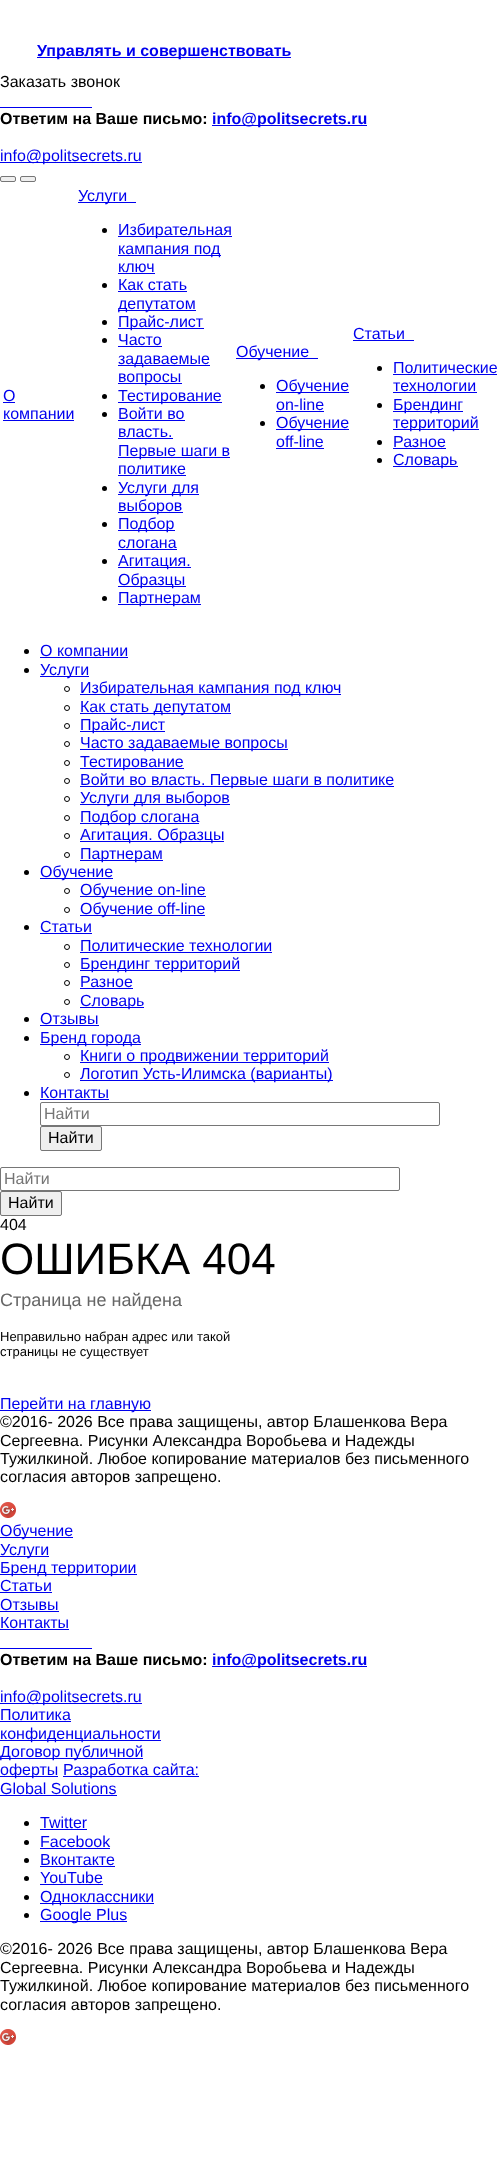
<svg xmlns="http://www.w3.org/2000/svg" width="497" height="2172">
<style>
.a{font:bold 16px Liberation Sans;fill:#00e}
.b{font:16px Liberation Sans;fill:#000}
.c{font:bold 16px Liberation Sans;fill:#000}
.d{font:16px Liberation Sans;fill:#00e}
.e{font:16px Liberation Sans;fill:#757575}
.f{font:44px Liberation Sans;fill:#000}
.g{font:18px Liberation Sans;fill:#666}
.h{font:13px Liberation Sans;fill:#000}
</style>
<rect width="100%" height="100%" fill="#fff"/>
<path fill="#00e" d="M37 57h254v1H37z"/>
<path fill="#00e" d="M0 107h92v1H0z"/>
<path fill="#00e" d="M212 125h155v1H212z"/>
<path fill="#00e" d="M0 162h142v1H0z"/>
<rect fill="#efefef" stroke="#767676" x="0.5" y="176.5" width="15" height="5" rx="1.5"/>
<rect fill="#efefef" stroke="#767676" x="20.5" y="176.5" width="15" height="5" rx="1.5"/>
<path fill="#00e" d="M3 402h12v1H3z"/>
<path fill="#00e" d="M3 420h71v1H3z"/>
<path fill="#00e" d="M78 202h58v1H78z"/>
<circle fill="#000" cx="104.5" cy="230.5" r="2.5"/>
<path fill="#00e" d="M118 236h114v1H118z"/>
<path fill="#00e" d="M118 255h103v1H118z"/>
<path fill="#00e" d="M118 273h37v1H118z"/>
<circle fill="#000" cx="104.5" cy="285.5" r="2.5"/>
<path fill="#00e" d="M118 291h69v1H118z"/>
<path fill="#00e" d="M118 310h78v1H118z"/>
<circle fill="#000" cx="104.5" cy="322.5" r="2.5"/>
<path fill="#00e" d="M118 328h86v1H118z"/>
<circle fill="#000" cx="104.5" cy="340.5" r="2.5"/>
<path fill="#00e" d="M118 346h44v1H118z"/>
<path fill="#00e" d="M118 365h92v1H118z"/>
<path fill="#00e" d="M118 383h64v1H118z"/>
<circle fill="#000" cx="104.5" cy="396.5" r="2.5"/>
<path fill="#00e" d="M118 402h104v1H118z"/>
<circle fill="#000" cx="104.5" cy="414.5" r="2.5"/>
<path fill="#00e" d="M118 420h67v1H118z"/>
<path fill="#00e" d="M118 438h55v1H118z"/>
<path fill="#00e" d="M118 457h112v1H118z"/>
<path fill="#00e" d="M118 475h68v1H118z"/>
<circle fill="#000" cx="104.5" cy="488.5" r="2.5"/>
<path fill="#00e" d="M118 494h81v1H118z"/>
<path fill="#00e" d="M118 512h65v1H118z"/>
<circle fill="#000" cx="104.5" cy="524.5" r="2.5"/>
<path fill="#00e" d="M118 530h57v1H118z"/>
<path fill="#00e" d="M118 549h59v1H118z"/>
<circle fill="#000" cx="104.5" cy="561.5" r="2.5"/>
<path fill="#00e" d="M118 567h73v1H118z"/>
<path fill="#00e" d="M118 586h68v1H118z"/>
<circle fill="#000" cx="104.5" cy="598.5" r="2.5"/>
<path fill="#00e" d="M118 604h83v1H118z"/>
<path fill="#00e" d="M236 358h82v1H236z"/>
<circle fill="#000" cx="262.5" cy="386.5" r="2.5"/>
<path fill="#00e" d="M276 392h73v1H276z"/>
<path fill="#00e" d="M276 411h48v1H276z"/>
<circle fill="#000" cx="262.5" cy="423.5" r="2.5"/>
<path fill="#00e" d="M276 429h73v1H276z"/>
<path fill="#00e" d="M276 448h48v1H276z"/>
<path fill="#00e" d="M353 340h61v1H353z"/>
<circle fill="#000" cx="379.5" cy="368.5" r="2.5"/>
<path fill="#00e" d="M393 374h104v1H393z"/>
<path fill="#00e" d="M393 392h84v1H393z"/>
<circle fill="#000" cx="379.5" cy="405.5" r="2.5"/>
<path fill="#00e" d="M393 411h70v1H393z"/>
<path fill="#00e" d="M393 429h86v1H393z"/>
<circle fill="#000" cx="379.5" cy="442.5" r="2.5"/>
<path fill="#00e" d="M393 448h53v1H393z"/>
<circle fill="#000" cx="379.5" cy="460.5" r="2.5"/>
<path fill="#00e" d="M393 466h65v1H393z"/>
<circle fill="#000" cx="26.5" cy="651.5" r="2.5"/>
<path fill="#00e" d="M40 657h88v1H40z"/>
<circle fill="#000" cx="26.5" cy="670.5" r="2.5"/>
<path fill="#00e" d="M40 676h49v1H40z"/>
<circle fill="none" stroke="#000" cx="67" cy="689" r="2.5"/>
<path fill="#00e" d="M80 694h261v1H80z"/>
<circle fill="none" stroke="#000" cx="67" cy="708" r="2.5"/>
<path fill="#00e" d="M80 713h151v1H80z"/>
<circle fill="none" stroke="#000" cx="67" cy="726" r="2.5"/>
<path fill="#00e" d="M80 731h85v1H80z"/>
<circle fill="none" stroke="#000" cx="67" cy="744" r="2.5"/>
<path fill="#00e" d="M80 749h208v1H80z"/>
<circle fill="none" stroke="#000" cx="67" cy="763" r="2.5"/>
<path fill="#00e" d="M80 768h104v1H80z"/>
<circle fill="none" stroke="#000" cx="67" cy="781" r="2.5"/>
<path fill="#00e" d="M80 786h314v1H80z"/>
<circle fill="none" stroke="#000" cx="67" cy="799" r="2.5"/>
<path fill="#00e" d="M80 804h150v1H80z"/>
<circle fill="none" stroke="#000" cx="67" cy="818" r="2.5"/>
<path fill="#00e" d="M80 823h119v1H80z"/>
<circle fill="none" stroke="#000" cx="67" cy="836" r="2.5"/>
<path fill="#00e" d="M80 841h144v1H80z"/>
<circle fill="none" stroke="#000" cx="67" cy="855" r="2.5"/>
<path fill="#00e" d="M80 860h83v1H80z"/>
<circle fill="#000" cx="26.5" cy="872.5" r="2.5"/>
<path fill="#00e" d="M40 878h73v1H40z"/>
<circle fill="none" stroke="#000" cx="67" cy="891" r="2.5"/>
<path fill="#00e" d="M80 896h126v1H80z"/>
<circle fill="none" stroke="#000" cx="67" cy="910" r="2.5"/>
<path fill="#00e" d="M80 915h125v1H80z"/>
<circle fill="#000" cx="26.5" cy="927.5" r="2.5"/>
<path fill="#00e" d="M40 933h52v1H40z"/>
<circle fill="none" stroke="#000" cx="67" cy="947" r="2.5"/>
<path fill="#00e" d="M80 952h192v1H80z"/>
<circle fill="none" stroke="#000" cx="67" cy="965" r="2.5"/>
<path fill="#00e" d="M80 970h160v1H80z"/>
<circle fill="none" stroke="#000" cx="67" cy="983" r="2.5"/>
<path fill="#00e" d="M80 988h53v1H80z"/>
<circle fill="none" stroke="#000" cx="67" cy="1002" r="2.5"/>
<path fill="#00e" d="M80 1007h64v1H80z"/>
<circle fill="#000" cx="26.5" cy="1019.5" r="2.5"/>
<path fill="#00e" d="M40 1025h59v1H40z"/>
<circle fill="#000" cx="26.5" cy="1038.5" r="2.5"/>
<path fill="#00e" d="M40 1044h101v1H40z"/>
<circle fill="none" stroke="#000" cx="67" cy="1057" r="2.5"/>
<path fill="#00e" d="M80 1062h249v1H80z"/>
<circle fill="none" stroke="#000" cx="67" cy="1075" r="2.5"/>
<path fill="#00e" d="M80 1080h253v1H80z"/>
<circle fill="#000" cx="26.5" cy="1093.5" r="2.5"/>
<path fill="#00e" d="M40 1099h69v1H40z"/>
<rect fill="none" stroke="#767676" x="40.5" y="1102.5" width="399" height="23" rx="1.5"/>
<rect fill="#efefef" stroke="#767676" x="40.5" y="1126.5" width="61" height="24" rx="1.5"/>
<rect fill="none" stroke="#767676" x="0.5" y="1167.5" width="399" height="23" rx="1.5"/>
<rect fill="#efefef" stroke="#767676" x="0.5" y="1191.5" width="61" height="24" rx="1.5"/>
<path fill="#00e" d="M0 1410h151v1H0z"/>
<image href="1.png" x="0" y="1502" width="16" height="16"/>
<path fill="#00e" d="M0 1537h73v1H0z"/>
<path fill="#00e" d="M0 1556h49v1H0z"/>
<path fill="#00e" d="M0 1574h137v1H0z"/>
<path fill="#00e" d="M0 1592h52v1H0z"/>
<path fill="#00e" d="M0 1611h59v1H0z"/>
<path fill="#00e" d="M0 1629h69v1H0z"/>
<path fill="#00e" d="M0 1648h92v1H0z"/>
<path fill="#00e" d="M212 1666h155v1H212z"/>
<path fill="#00e" d="M0 1703h142v1H0z"/>
<path fill="#00e" d="M0 1721h71v1H0z"/>
<path fill="#00e" d="M0 1740h161v1H0z"/>
<path fill="#00e" d="M0 1758h143v1H0z"/>
<path fill="#00e" d="M0 1776h58v1H0z"/>
<path fill="#00e" d="M63 1776h136v1H63z"/>
<path fill="#00e" d="M0 1795h117v1H0z"/>
<circle fill="#000" cx="26.5" cy="1823.5" r="2.5"/>
<path fill="#00e" d="M40 1829h47v1H40z"/>
<circle fill="#000" cx="26.5" cy="1842.5" r="2.5"/>
<path fill="#00e" d="M40 1848h70v1H40z"/>
<circle fill="#000" cx="26.5" cy="1860.5" r="2.5"/>
<path fill="#00e" d="M40 1866h75v1H40z"/>
<circle fill="#000" cx="26.5" cy="1878.5" r="2.5"/>
<path fill="#00e" d="M40 1884h63v1H40z"/>
<circle fill="#000" cx="26.5" cy="1897.5" r="2.5"/>
<path fill="#00e" d="M40 1903h114v1H40z"/>
<circle fill="#000" cx="26.5" cy="1915.5" r="2.5"/>
<path fill="#00e" d="M40 1921h87v1H40z"/>
<image href="1.png" x="0" y="2029" width="16" height="16"/>
<text class="a" x="37" y="56">Управлять и совершенствовать</text>
<text class="b" x="0" y="87">Заказать звонок</text>
<text class="c" x="0" y="124">Ответим на Ваше письмо:</text>
<text class="a" x="212" y="124">info@politsecrets.ru</text>
<text class="d" x="0" y="161">info@politsecrets.ru</text>
<text class="d" x="3" y="401">О</text>
<text class="d" x="3" y="419">компании</text>
<text class="d" x="78" y="201">Услуги</text>
<text class="d" x="118" y="235">Избирательная</text>
<text class="d" x="118" y="254">кампания под</text>
<text class="d" x="118" y="272">ключ</text>
<text class="d" x="118" y="290">Как стать</text>
<text class="d" x="118" y="309">депутатом</text>
<text class="d" x="118" y="327">Прайс-лист</text>
<text class="d" x="118" y="345">Часто</text>
<text class="d" x="118" y="364">задаваемые</text>
<text class="d" x="118" y="382">вопросы</text>
<text class="d" x="118" y="401">Тестирование</text>
<text class="d" x="118" y="419">Войти во</text>
<text class="d" x="118" y="437">власть.</text>
<text class="d" x="118" y="456">Первые шаги в</text>
<text class="d" x="118" y="474">политике</text>
<text class="d" x="118" y="493">Услуги для</text>
<text class="d" x="118" y="511">выборов</text>
<text class="d" x="118" y="529">Подбор</text>
<text class="d" x="118" y="548">слогана</text>
<text class="d" x="118" y="566">Агитация.</text>
<text class="d" x="118" y="585">Образцы</text>
<text class="d" x="118" y="603">Партнерам</text>
<text class="d" x="236" y="357">Обучение</text>
<text class="d" x="276" y="391">Обучение</text>
<text class="d" x="276" y="410">on-line</text>
<text class="d" x="276" y="428">Обучение</text>
<text class="d" x="276" y="447">off-line</text>
<text class="d" x="353" y="339">Статьи</text>
<text class="d" x="393" y="373">Политические</text>
<text class="d" x="393" y="391">технологии</text>
<text class="d" x="393" y="410">Брендинг</text>
<text class="d" x="393" y="428">территорий</text>
<text class="d" x="393" y="447">Разное</text>
<text class="d" x="393" y="465">Словарь</text>
<text class="d" x="40" y="656">О компании</text>
<text class="d" x="40" y="675">Услуги</text>
<text class="d" x="80" y="693">Избирательная кампания под ключ</text>
<text class="d" x="80" y="712">Как стать депутатом</text>
<text class="d" x="80" y="730">Прайс-лист</text>
<text class="d" x="80" y="748">Часто задаваемые вопросы</text>
<text class="d" x="80" y="767">Тестирование</text>
<text class="d" x="80" y="785">Войти во власть. Первые шаги в политике</text>
<text class="d" x="80" y="803">Услуги для выборов</text>
<text class="d" x="80" y="822">Подбор слогана</text>
<text class="d" x="80" y="840">Агитация. Образцы</text>
<text class="d" x="80" y="859">Партнерам</text>
<text class="d" x="40" y="877">Обучение</text>
<text class="d" x="80" y="895">Обучение on-line</text>
<text class="d" x="80" y="914">Обучение off-line</text>
<text class="d" x="40" y="932">Статьи</text>
<text class="d" x="80" y="951">Политические технологии</text>
<text class="d" x="80" y="969">Брендинг территорий</text>
<text class="d" x="80" y="987">Разное</text>
<text class="d" x="80" y="1006">Словарь</text>
<text class="d" x="40" y="1024">Отзывы</text>
<text class="d" x="40" y="1043">Бренд города</text>
<text class="d" x="80" y="1061">Книги о продвижении территорий</text>
<text class="d" x="80" y="1079">Логотип Усть-Илимска (варианты)</text>
<text class="d" x="40" y="1098">Контакты</text>
<text class="e" x="44" y="1119">Найти</text>
<text class="b" x="48" y="1143">Найти</text>
<text class="e" x="4" y="1184">Найти</text>
<text class="b" x="8" y="1208">Найти</text>
<text class="b" x="0" y="1230">404</text>
<text class="f" x="0" y="1274">ОШИБКА 404</text>
<text class="g" x="0" y="1306">Страница не найдена</text>
<text class="h" x="0" y="1341">Неправильно набран адрес или такой</text>
<text class="h" x="0" y="1356">страницы не существует</text>
<text class="d" x="0" y="1409">Перейти на главную</text>
<text class="b" x="0" y="1427">©2016- 2026 Все права защищены, автор Блашенкова Вера</text>
<text class="b" x="0" y="1446">Сергеевна. Рисунки Александра Воробьева и Надежды</text>
<text class="b" x="0" y="1464">Тужилкиной. Любое копирование материалов без письменного</text>
<text class="b" x="0" y="1482">согласия авторов запрещено.</text>
<text class="d" x="0" y="1536">Обучение</text>
<text class="d" x="0" y="1555">Услуги</text>
<text class="d" x="0" y="1573">Бренд территории</text>
<text class="d" x="0" y="1591">Статьи</text>
<text class="d" x="0" y="1610">Отзывы</text>
<text class="d" x="0" y="1628">Контакты</text>
<text class="c" x="0" y="1665">Ответим на Ваше письмо:</text>
<text class="a" x="212" y="1665">info@politsecrets.ru</text>
<text class="d" x="0" y="1702">info@politsecrets.ru</text>
<text class="d" x="0" y="1720">Политика</text>
<text class="d" x="0" y="1739">конфиденциальности</text>
<text class="d" x="0" y="1757">Договор публичной</text>
<text class="d" x="0" y="1775">оферты</text>
<text class="d" x="63" y="1775">Разработка сайта:</text>
<text class="d" x="0" y="1794">Global Solutions</text>
<text class="d" x="40" y="1828">Twitter</text>
<text class="d" x="40" y="1847">Facebook</text>
<text class="d" x="40" y="1865">Вконтакте</text>
<text class="d" x="40" y="1883">YouTube</text>
<text class="d" x="40" y="1902">Одноклассники</text>
<text class="d" x="40" y="1920">Google Plus</text>
<text class="b" x="0" y="1954">©2016- 2026 Все права защищены, автор Блашенкова Вера</text>
<text class="b" x="0" y="1973">Сергеевна. Рисунки Александра Воробьева и Надежды</text>
<text class="b" x="0" y="1991">Тужилкиной. Любое копирование материалов без письменного</text>
<text class="b" x="0" y="2010">согласия авторов запрещено.</text>
</svg>
